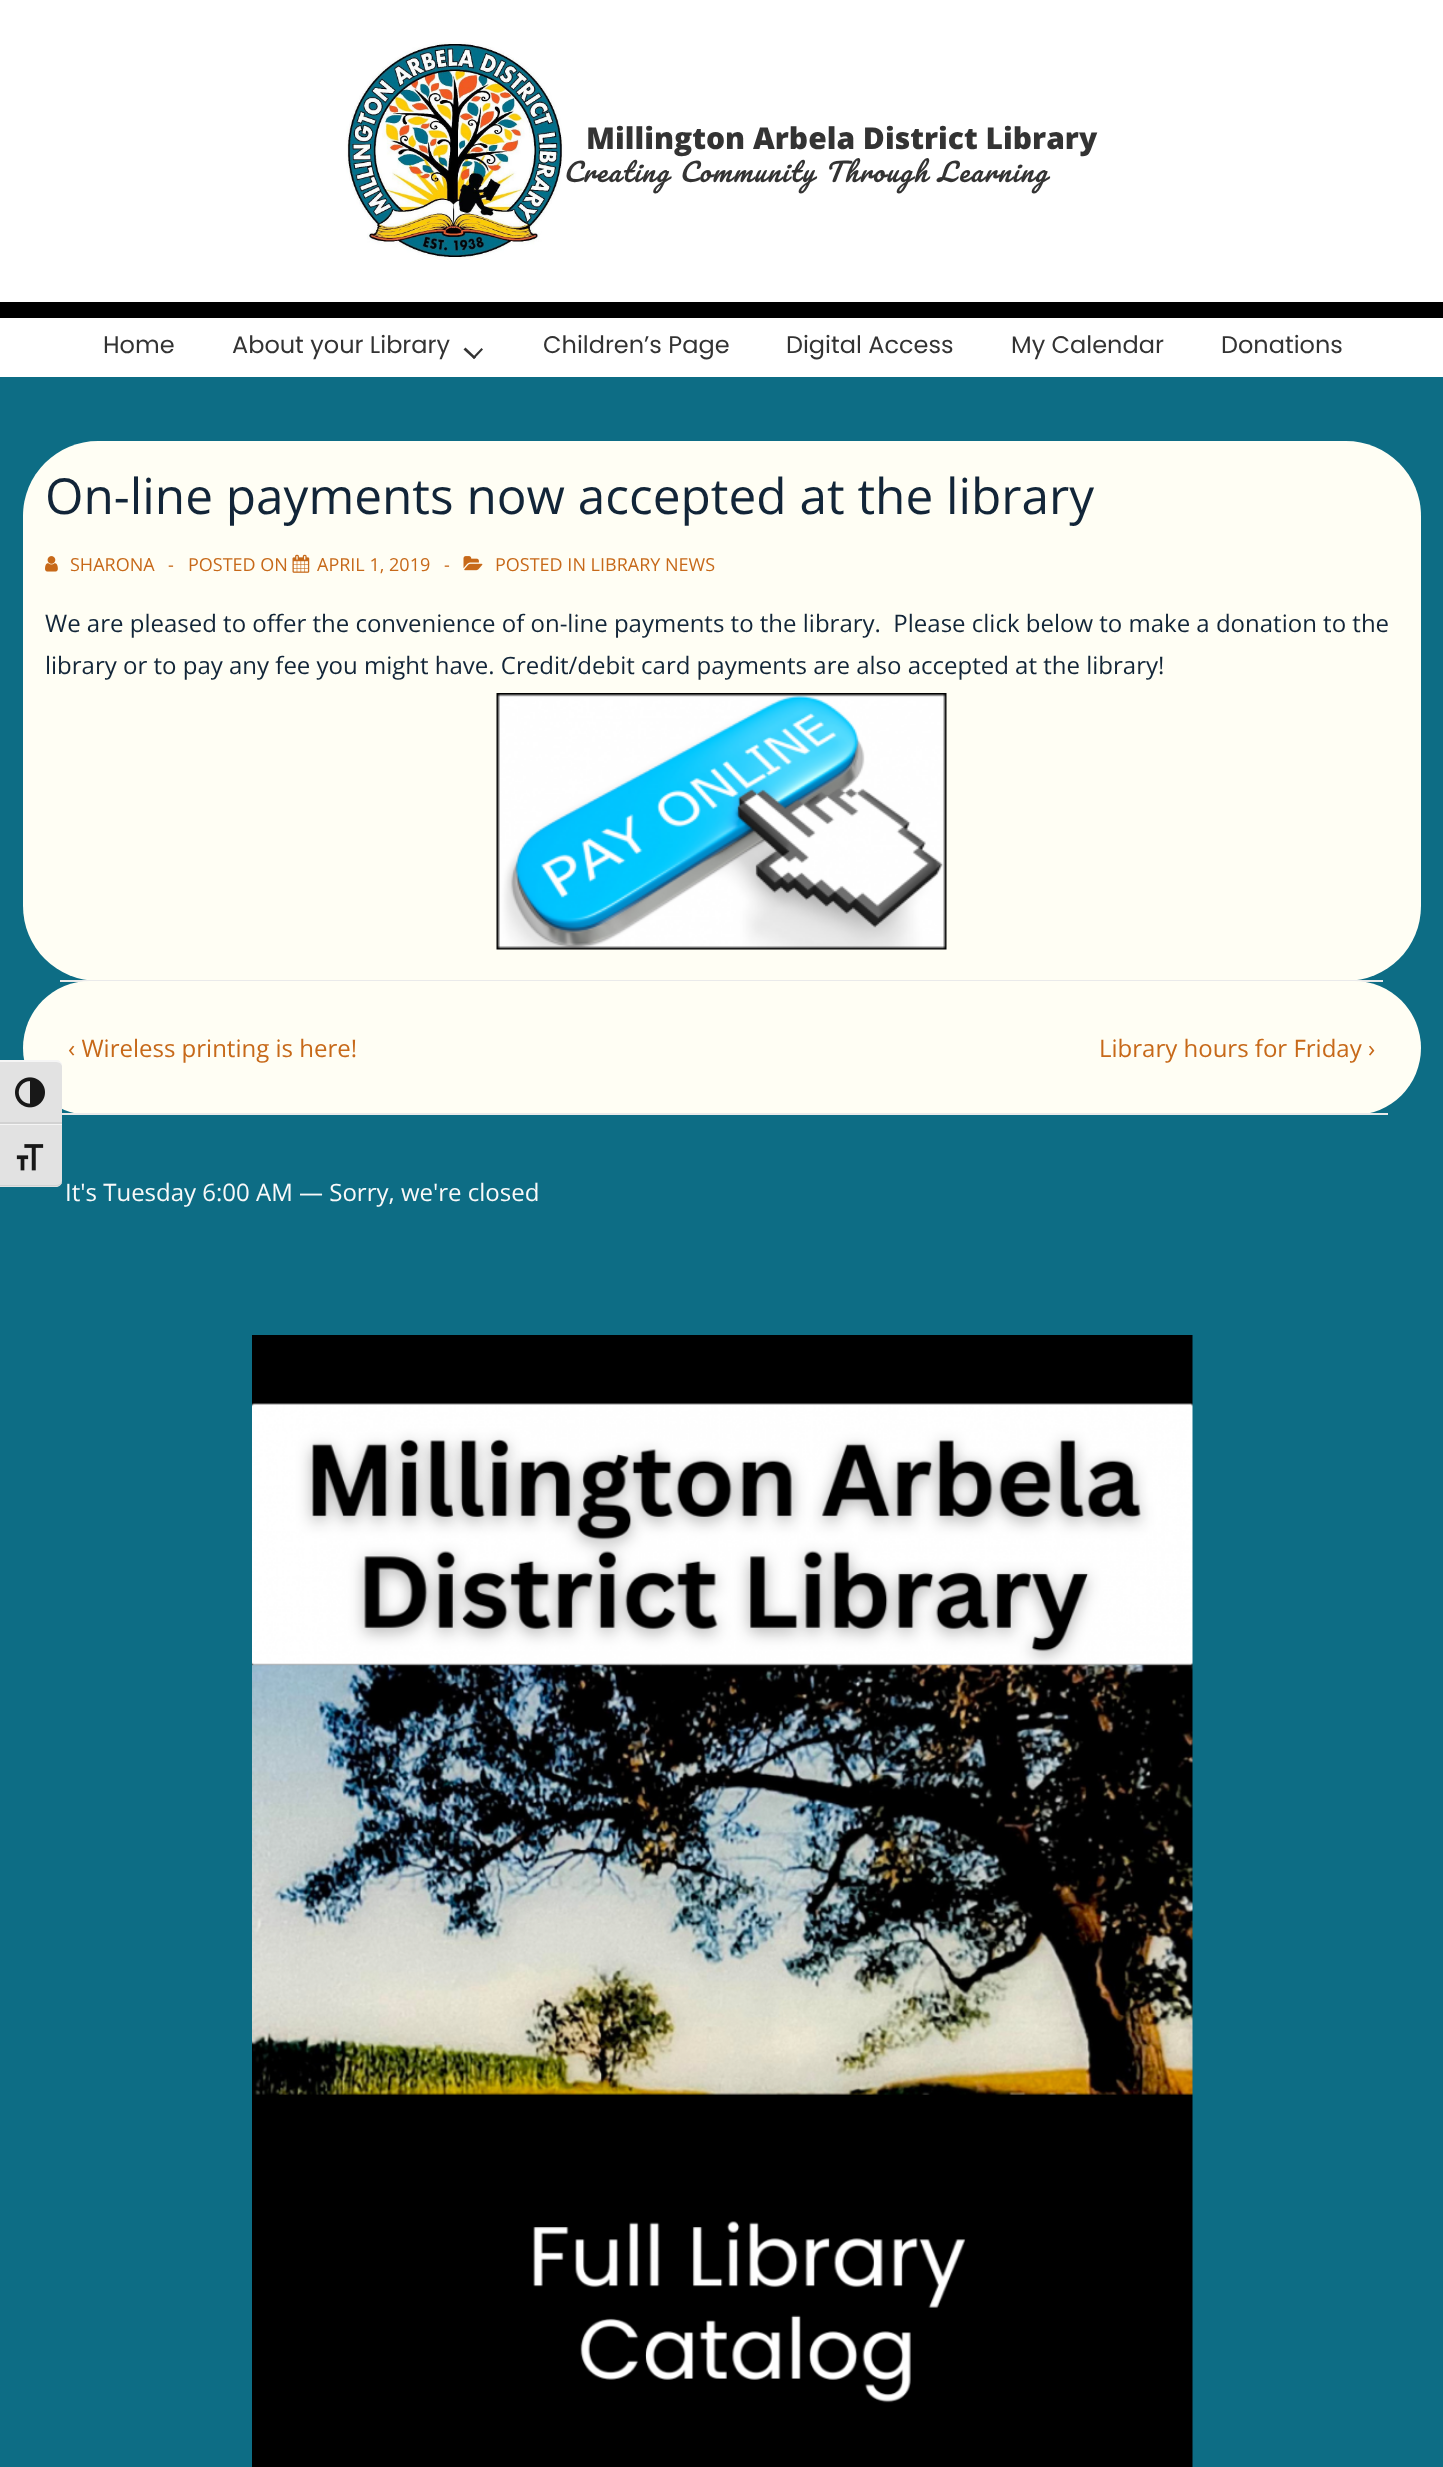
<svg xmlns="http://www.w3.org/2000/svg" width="1443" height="2467">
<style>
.a{font:800 30px Open Sans;fill:#333}
.b{font:italic 25.5px Pacifico;letter-spacing:1.8px;fill:#333}
.c{font:24px Poppins;fill:#333}
.d{font:49.5px Open Sans;fill:#122538}
.e{font:18px Open Sans;fill:#c76919}
.f{font:24px Open Sans;fill:#122538}
.g{font:24px Open Sans;fill:#c76919}
.h{font:24px Open Sans;fill:#f9f9f9}
</style>
<rect width="100%" height="100%" fill="#0d6d85"/>
<rect fill="#fffef4" x="23" y="441" width="1398" height="540" rx="75"/>
<path fill="#eaeaea" d="M60 980h1323v2H60z"/>
<rect fill="#fffef4" x="23" y="981" width="1398" height="134" rx="67"/>
<path fill="#eaeaea" d="M56 1113h1332v2H56z"/>
<path fill="#e2e2e2" d="M0 1061h56c3.5 0 6 2.5 6 6v57h-62z"/>
<path fill="#f5f5f5" d="M0 1062h56c2 0 5 1 6 3v-1c-1-2-2-3-4-4h-58z"/>
<path fill="#d2d2d2" d="M0 1122h62v2H0z"/>
<image href="1.png" x="15" y="1077" width="30" height="31"/>
<path fill="#e2e2e2" d="M0 1124h62v57c0 3.5-2.5 6-6 6h-56z"/>
<path fill="#f5f5f5" d="M0 1124h62v1H0z"/>
<path fill="#d2d2d2" d="M0 1185v1h56c2 0 5-1 6-3v-1c-1 2-4 3-6 3z"/>
<image href="2.png" x="16" y="1144" width="28" height="27"/>
<path fill="#fff" d="M0 0h1443v302H0z"/>
<path fill="#000" d="M0 302h1443v16H0z"/>
<image href="3.png" x="346" y="42" width="218" height="217"/>
<path fill="#fff" d="M0 318h1443v59H0z"/>
<path fill="#333" d="M463.5 349.5l2-2l10.5 10l-2 1.5z"/>
<path fill="#333" d="M472.5 357.5l9-9.5l1.5 1.5l-9 9.5z"/>
<image href="4.png" x="45" y="556" width="13" height="16"/>
<image href="5.png" x="292" y="554" width="18" height="19"/>
<image href="6.png" x="463" y="556" width="20" height="15"/>
<image href="7.png" x="496" y="693" width="451" height="257"/>
<image href="8.png" x="252" y="1335" width="941" height="1132"/>
<text class="a" x="586" y="149">Millington Arbela District Library</text>
<text class="b" x="563" y="182" word-spacing="1">Creating Community Through Learning</text>
<text class="c" x="103" y="353">Home</text>
<text class="c" x="232" y="353">About your Library</text>
<text class="c" x="543" y="353">Children’s Page</text>
<text class="c" x="786" y="353">Digital Access</text>
<text class="c" x="1011" y="353">My Calendar</text>
<text class="c" x="1221" y="353">Donations</text>
<text class="d" x="45" y="514">On-line payments now accepted at the library</text>
<text class="e" x="70" y="571">SHARONA</text>
<text class="e" x="168" y="571">-</text>
<text class="e" x="188" y="571">POSTED ON</text>
<text class="e" x="317" y="571">APRIL 1, 2019</text>
<text class="e" x="444" y="571">-</text>
<text class="e" x="495" y="571">POSTED IN LIBRARY NEWS</text>
<text class="f" xml:space="preserve" x="45" y="632">We are pleased to offer the convenience of on-line payments to the library.  Please click below to make a donation to the</text>
<text class="f" x="45" y="674">library or to pay any fee you might have. Credit/debit card payments are also accepted at the library!</text>
<text class="g" x="68" y="1057">‹ Wireless printing is here!</text>
<text class="g" x="1099" y="1057">Library hours for Friday ›</text>
<text class="h" x="65" y="1201">It's Tuesday 6:00 AM — Sorry, we're closed</text>
</svg>
